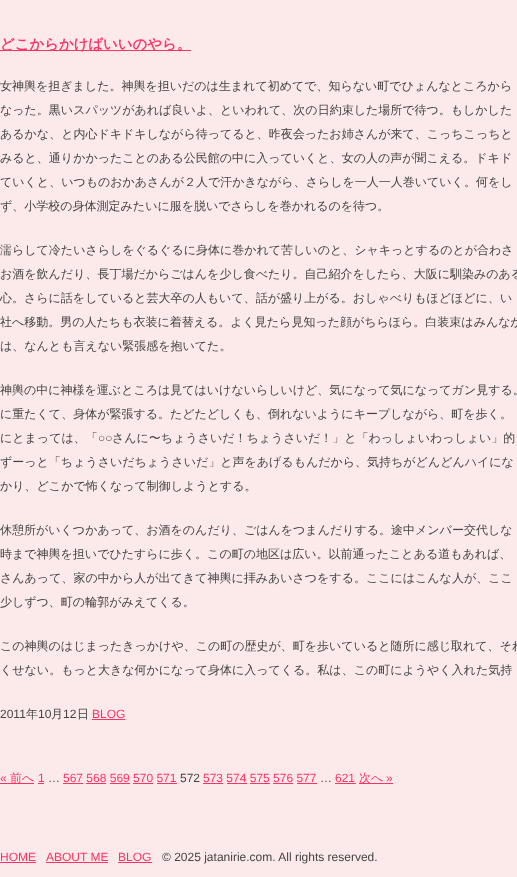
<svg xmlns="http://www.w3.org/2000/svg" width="517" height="877">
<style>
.a{font:bold 14.4px WenQuanYi Zen Hei;fill:#f36}
.b{font:500 12px WenQuanYi Zen Hei;fill:#444}
.c{font:12px Liberation Sans;fill:#444}
.d{font:12px Liberation Sans;fill:#f36}
.e{font:500 12px WenQuanYi Zen Hei;fill:#f36}
</style>
<rect width="100%" height="100%" fill="#fceaea"/>
<path fill="#f36" d="M0 50h191v1H0z"/>
<path fill="#f36" d="M92 719h33v1H92z"/>
<path fill="#f36" d="M0 783h34v1H0z"/>
<path fill="#f36" d="M38 783h6v1H38z"/>
<path fill="#f36" d="M63 783h20v1H63z"/>
<path fill="#f36" d="M203 783h20v1H203z"/>
<path fill="#f36" d="M335 783h21v1H335z"/>
<path fill="#f36" d="M359 783h34v1H359z"/>
<path fill="#f36" d="M86 783h20v1H86z"/>
<path fill="#f36" d="M110 783h20v1H110z"/>
<path fill="#f36" d="M133 783h20v1H133z"/>
<path fill="#f36" d="M157 783h20v1H157z"/>
<path fill="#f36" d="M227 783h20v1H227z"/>
<path fill="#f36" d="M250 783h20v1H250z"/>
<path fill="#f36" d="M273 783h20v1H273z"/>
<path fill="#f36" d="M297 783h20v1H297z"/>
<path fill="#f36" d="M0 862h36v1H0z"/>
<path fill="#f36" d="M46 862h62v1H46z"/>
<path fill="#f36" d="M118 862h34v1H118z"/>
<text class="a" x="0" y="49">どこからかけばいいのやら。</text>
<text class="b" x="0" y="90">女神輿を担ぎました。神輿を担いだのは生まれて初めてで、知らない町でひょんなところから</text>
<text class="b" x="0" y="114">なった。黒いスパッツがあれば良いよ、といわれて、次の日約束した場所で待つ。もしかした</text>
<text class="b" x="0" y="138">あるかな、と内心ドキドキしながら待ってると、昨夜会ったお姉さんが来て、こっちこっちと</text>
<text class="b" x="0" y="162">みると、通りかかったことのある公民館の中に入っていくと、女の人の声が聞こえる。ドキド</text>
<text class="b" x="0" y="186">ていくと、いつものおかあさんが２人で汗かきながら、さらしを一人一人巻いていく。何をし</text>
<text class="b" x="0" y="210">ず、小学校の身体測定みたいに服を脱いでさらしを巻かれるのを待つ。</text>
<text class="b" x="0" y="254">濡らして冷たいさらしをぐるぐるに身体に巻かれて苦しいのと、シャキっとするのとが合わさ</text>
<text class="b" x="0" y="278">お酒を飲んだり、長丁場だからごはんを少し食べたり。自己紹介をしたら、大阪に馴染みのある</text>
<text class="b" x="0" y="302">心。さらに話をしていると芸大卒の人もいて、話が盛り上がる。おしゃべりもほどほどに、い</text>
<text class="b" x="0" y="326">社へ移動。男の人たちも衣装に着替える。よく見たら見知った顔がちらほら。白装束はみんなか</text>
<text class="b" x="0" y="350">は、なんとも言えない緊張感を抱いてた。</text>
<text class="b" x="0" y="394">神輿の中に神様を運ぶところは見てはいけないらしいけど、気になって気になってガン見する。</text>
<text class="b" x="0" y="418">に重たくて、身体が緊張する。たどたどしくも、倒れないようにキープしながら、町を歩く。</text>
<text class="b" x="0" y="442">にとまっては、「</text>
<text class="c" x="98" y="442">○○</text>
<text class="b" x="112" y="442">さんに〜ちょうさいだ！ちょうさいだ！」と「わっしょいわっしょい」的</text>
<text class="b" x="0" y="466">ずーっと「ちょうさいだちょうさいだ」と声をあげるもんだから、気持ちがどんどんハイにな</text>
<text class="b" x="0" y="490">かり、どこかで怖くなって制御しようとする。</text>
<text class="b" x="0" y="534">休憩所がいくつかあって、お酒をのんだり、ごはんをつまんだりする。途中メンバー交代しな</text>
<text class="b" x="0" y="558">時まで神輿を担いでひたすらに歩く。この町の地区は広い。以前通ったことある道もあれば、</text>
<text class="b" x="0" y="582">さんあって、家の中から人が出てきて神輿に拝みあいさつをする。ここにはこんな人が、ここ</text>
<text class="b" x="0" y="606">少しずつ、町の輪郭がみえてくる。</text>
<text class="b" x="0" y="650">この神輿のはじまったきっかけや、この町の歴史が、町を歩いていると随所に感じ取れて、それ</text>
<text class="b" x="0" y="674">くせない。もっと大きな何かになって身体に入ってくる。私は、この町にようやく入れた気持</text>
<text class="c" x="0" y="718">2011</text>
<text class="b" x="26" y="718">年</text>
<text class="c" x="38" y="718">10</text>
<text class="b" x="51" y="718">月</text>
<text class="c" x="63" y="718">12</text>
<text class="b" x="77" y="718">日</text>
<text class="d" x="92" y="718">BLOG</text>
<text class="d" x="0" y="782">«</text>
<text class="e" x="10" y="782">前へ</text>
<text class="d" x="38" y="782">1</text>
<text class="c" x="48" y="782">…</text>
<text class="d" x="63" y="782">567 568 569 570 571</text>
<text class="c" x="180" y="782">572</text>
<text class="d" x="203" y="782">573 574 575 576 577</text>
<text class="c" x="320" y="782">…</text>
<text class="d" x="335" y="782">621</text>
<text class="e" x="359" y="782">次へ</text>
<text class="d" x="386" y="782">»</text>
<text class="d" x="0" y="861">HOME</text>
<text class="d" x="46" y="861">ABOUT ME</text>
<text class="d" x="118" y="861">BLOG</text>
<text class="c" x="162" y="861">© 2025 jatanirie.com. All rights reserved.</text>
</svg>
